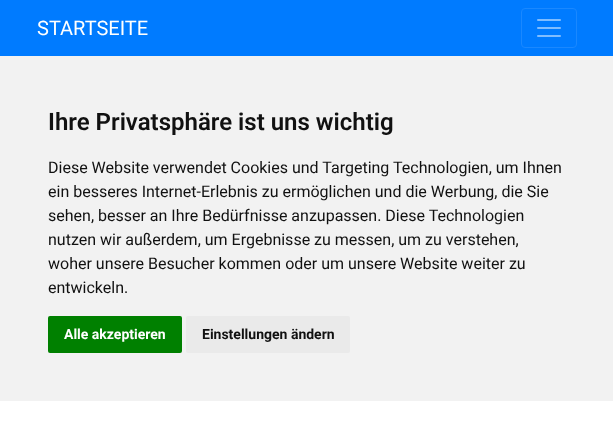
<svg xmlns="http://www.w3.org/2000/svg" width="613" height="432">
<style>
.a{font:20px Roboto;fill:#fff}
.b{font:600 24px Roboto;fill:#111}
.c{font:16px Roboto;fill:#111}
.d{font:bold 14px Roboto;fill:#fff}
.e{font:bold 14px Roboto;fill:#111}
</style>
<rect width="100%" height="100%" fill="#fff"/>
<path fill="#007bff" d="M0 0h613v56H0z"/>
<rect fill="none" stroke="#1a88ff" x="521.5" y="8.5" width="55" height="39" rx="3.5"/>
<image href="1.png" x="537" y="19" width="24" height="18"/>
<path fill="#f2f2f2" d="M0 56h613v345H0z"/>
<rect fill="#008000" x="48" y="316" width="134" height="37" rx="2"/>
<rect fill="#eaeaea" x="186" y="316" width="164" height="37" rx="2"/>
<text class="a" x="37" y="35">STARTSEITE</text>
<text class="b" x="48" y="130">Ihre Privatsphäre ist uns wichtig</text>
<text class="c" x="48" y="173">Diese Website verwendet Cookies und Targeting Technologien, um Ihnen</text>
<text class="c" x="48" y="197">ein besseres Internet-Erlebnis zu ermöglichen und die Werbung, die Sie</text>
<text class="c" x="48" y="221">sehen, besser an Ihre Bedürfnisse anzupassen. Diese Technologien</text>
<text class="c" x="48" y="245">nutzen wir außerdem, um Ergebnisse zu messen, um zu verstehen,</text>
<text class="c" x="48" y="269">woher unsere Besucher kommen oder um unsere Website weiter zu</text>
<text class="c" x="48" y="293">entwickeln.</text>
<text class="d" x="64" y="339">Alle akzeptieren</text>
<text class="e" x="202" y="339">Einstellungen ändern</text>
</svg>
